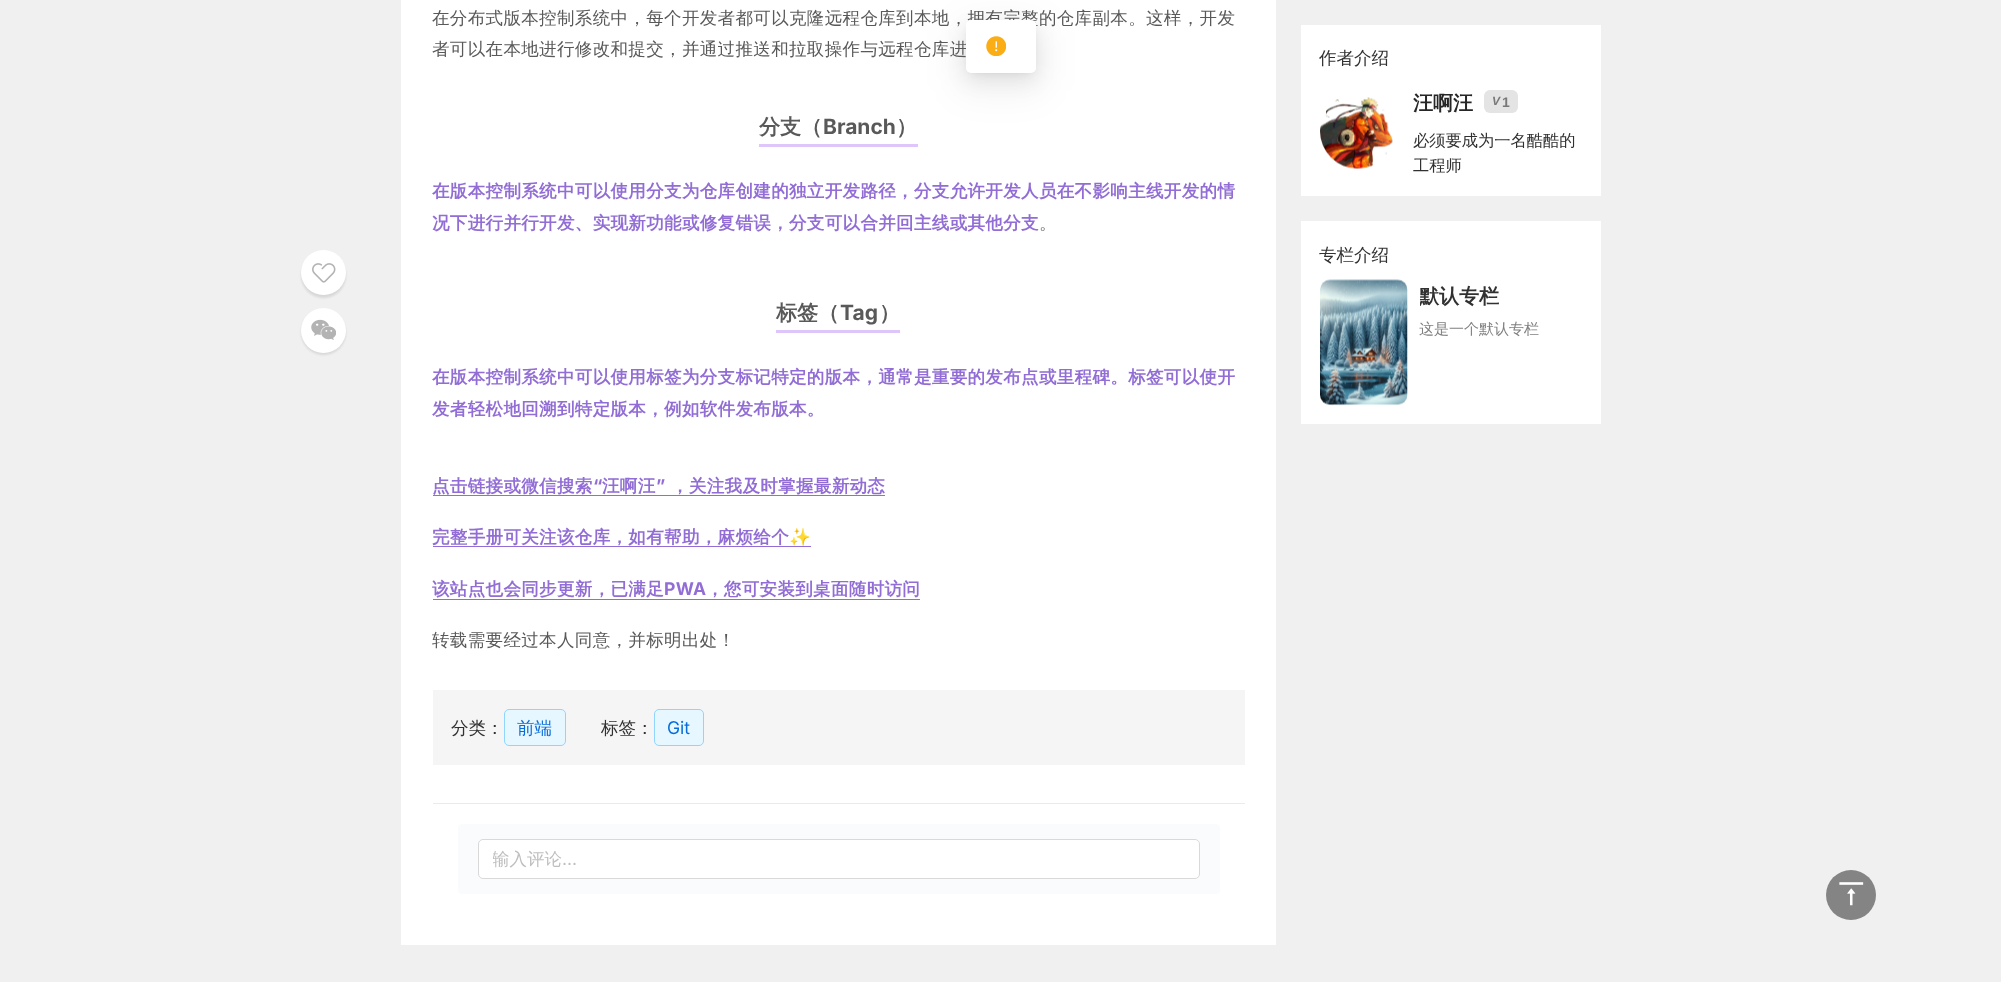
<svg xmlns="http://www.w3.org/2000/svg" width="2001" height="982">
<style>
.a{font:500 17.5px WenQuanYi Zen Hei;letter-spacing:0.35px;fill:#595959}
.b{font:bold 21px WenQuanYi Zen Hei;fill:#595959}
.c{font:bold 21px Inter;fill:#595959}
.d{font:bold 17.5px WenQuanYi Zen Hei;letter-spacing:0.35px;fill:#916dd5}
.e{font:bold 17.5px Inter;letter-spacing:0.35px;fill:#916dd5}
.f{font:bold 17.5px Noto Color Emoji;letter-spacing:0.35px;fill:#916dd5}
.g{font:500 17.5px WenQuanYi Zen Hei;fill:#313131}
.h{font:500 17.5px WenQuanYi Zen Hei;fill:#096dd9}
.i{font:17.5px Inter;fill:#096dd9}
.j{font:500 17.5px WenQuanYi Zen Hei;fill:#bfbfbf}
.k{font:17.5px Inter;fill:#bfbfbf}
.l{font:bold 20px WenQuanYi Zen Hei;fill:#262626}
.m{font:italic bold 12px Liberation Sans;fill:#797979}
.n{font:bold 14px Liberation Sans;fill:#797979}
.o{font:500 16.25px WenQuanYi Zen Hei;fill:#313131}
.p{font:bold 20px WenQuanYi Zen Hei;fill:#313131}
.q{font:500 15px WenQuanYi Zen Hei;fill:#808080}
</style>
<defs>
<clipPath id="clip1"><path d="M493 848h692v23H493z"/></clipPath>
<clipPath id="clip2"><path d="M1420 280h163v33H1420z"/></clipPath>
</defs>
<rect width="100%" height="100%" fill="#f0f0f0"/>
<path fill="#fff" d="M401 0h875v945H401z"/>
<path fill="#dec6fb" d="M759 144h159v3H759z"/>
<rect fill="#0000000d" filter="blur(17.5px)" x="956" y="21" width="90" height="73" rx="15"/>
<rect fill="#00000014" filter="blur(10px)" x="966" y="28" width="70" height="52" rx="5"/>
<path fill="#0000001f" filter="blur(4px)" d="M971 29h60v42H971z"/>
<rect fill="#0000001a" filter="blur(1px)" x="301" y="253" width="45" height="45" rx="22.5"/>
<circle fill="#fff" cx="323.5" cy="272.5" r="22.5"/>
<image href="2.png" x="312" y="263" width="24" height="20"/>
<rect fill="#0000001a" filter="blur(1px)" x="301" y="310" width="45" height="45" rx="22.5"/>
<circle fill="#fff" cx="323.5" cy="330.5" r="22.5"/>
<image href="3.png" x="311" y="319" width="25" height="21"/>
<path fill="#dec6fb" d="M776 330h124v3H776z"/>
<path fill="#916dd5" d="M433 495h452v1H433z"/>
<path fill="#916dd5" d="M433 546h378v1H433z"/>
<path fill="#916dd5" d="M433 599h487v1H433z"/>
<path fill="#f5f5f5" d="M433 690h812v75H433z"/>
<rect fill="#e6f7ff" stroke="#91d5ff" x="504.5" y="709.5" width="61" height="36" rx="4.5"/>
<rect fill="#e6f7ff" stroke="#91d5ff" x="654.5" y="709.5" width="49" height="36" rx="4.5"/>
<path fill="#ebebeb" d="M433 803h812v1H433z"/>
<rect fill="#fafbfc" x="458" y="824" width="762" height="70" rx="4"/>
<rect fill="#fff" stroke="#d9d9d9" x="478.5" y="839.5" width="721" height="39" rx="4.5"/>
<path fill="#fff" d="M1301 25h300v171H1301z"/>
<image href="4.png" x="1320" y="97" width="74" height="72"/>
<rect fill="#e4e4e4" x="1484" y="90" width="34" height="23" rx="6"/>
<path fill="#fff" d="M1301 221h300v203H1301z"/>
<image href="5.png" x="1320" y="279" width="88" height="127"/>
<circle fill="#848484" cx="1851" cy="895" r="25"/>
<image href="6.png" x="1839" y="882" width="25" height="24"/>
<text class="a" x="432" y="24">在分布式版本控制系统中，每个开发者都可以克隆远程仓库到本地，拥有完整的仓库副本。这样，开发</text>
<text class="a" x="432" y="55">者可以在本地进行修改和提交，并通过推送和拉取操作与远程仓库进</text>
<rect fill="#fff" x="966" y="20" width="70" height="53" rx="5"/>
<image href="1.png" x="986" y="36" width="20" height="20"/>
<text class="b" x="759" y="134">分支（</text>
<text class="c" x="823" y="134">Branch</text>
<text class="b" x="896" y="134">）</text>
<text class="d" x="432" y="197">在版本控制系统中可以使用分支为仓库创建的独立开发路径，分支允许开发人员在不影响主线开发的情</text>
<text class="d" x="432" y="229">况下进行并行开发、实现新功能或修复错误，分支可以合并回主线或其他分支</text>
<text class="a" x="1039" y="229">。</text>
<text class="b" x="776" y="320">标签（</text>
<text class="c" x="840" y="320">Tag</text>
<text class="b" x="879" y="320">）</text>
<text class="d" x="432" y="383">在版本控制系统中可以使用标签为分支标记特定的版本，通常是重要的发布点或里程碑。标签可以使开</text>
<text class="d" x="432" y="415">发者轻松地回溯到特定版本，例如软件发布版本。</text>
<text class="d" x="432" y="492">点击链接或微信搜索</text>
<text class="e" x="593" y="492">“</text>
<text class="d" x="602" y="492">汪啊汪</text>
<text class="e" x="656" y="492">”</text>
<text class="d" x="671" y="492">，关注我及时掌握最新动态</text>
<text class="d" x="432" y="543">完整手册可关注该仓库，如有帮助，麻烦给个</text>
<text class="f" x="789" y="543">✨</text>
<text class="d" x="432" y="595">该站点也会同步更新，已满足</text>
<text class="e" x="664" y="595">PWA</text>
<text class="d" x="706" y="595">，您可安装到桌面随时访问</text>
<text class="a" x="432" y="646">转载需要经过本人同意，并标明出处！</text>
<text class="g" x="451" y="734">分类：</text>
<text class="h" x="517" y="734">前端</text>
<text class="g" x="601" y="734">标签：</text>
<text class="i" x="667" y="734">Git</text>
<g clip-path="url(#clip1)">
<text class="j" x="492" y="865">输入评论</text>
</g>
<text class="k" x="562" y="865">...</text>
<text class="g" x="1319" y="64">作者介绍</text>
<text class="l" x="1413" y="110">汪啊汪</text>
<text class="m" x="1492" y="105">V</text>
<text class="n" x="1502" y="107">1</text>
<text class="o" x="1413" y="146">必须要成为一名酷酷的</text>
<text class="o" x="1413" y="171">工程师</text>
<text class="g" x="1319" y="261">专栏介绍</text>
<g clip-path="url(#clip2)">
<text class="p" x="1419" y="303">默认专栏</text>
</g>
<text class="q" x="1419" y="334">这是一个默认专栏</text>
</svg>
